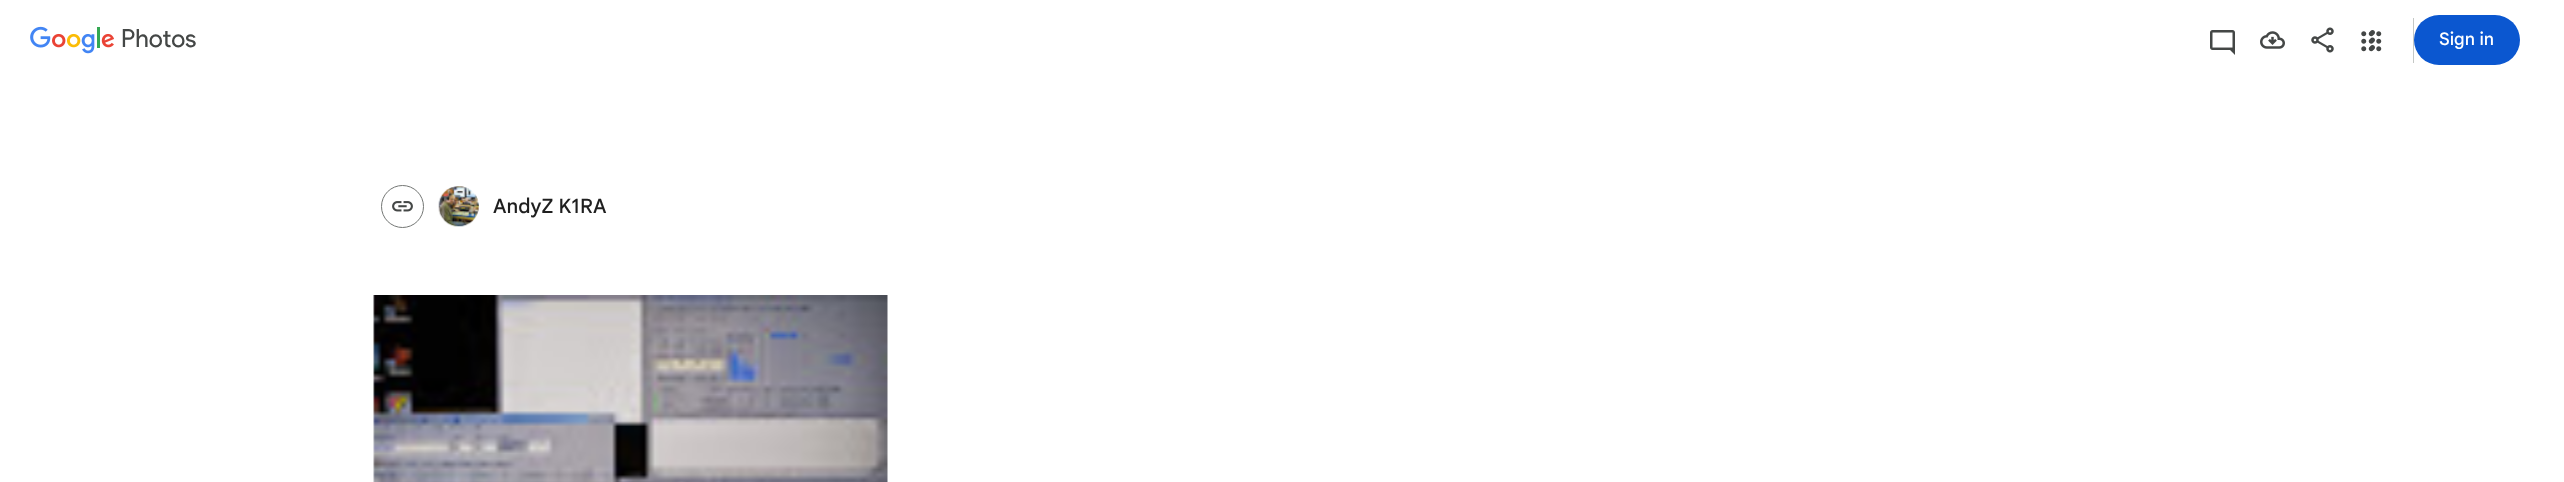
<svg xmlns="http://www.w3.org/2000/svg" width="2564" height="482">
<style>
.a{font:25px Product Sans;fill:#444746}
.b{font:500 20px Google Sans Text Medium;fill:#1f1f1f}
.c{font:500 17.5px Google Sans Text Medium;fill:#fff}
</style>
<rect width="100%" height="100%" fill="#fff"/>
<image href="1.png" x="30" y="26" width="84" height="28"/>
<image href="2.png" x="2210" y="30" width="25" height="25"/>
<image href="3.png" x="2260" y="31" width="25" height="18"/>
<image href="4.png" x="2311" y="27" width="23" height="26"/>
<image href="5.png" x="2370" y="30" width="5" height="20"/>
<path fill="#c4c7c5" d="M2413 18h1v45H2413z"/>
<circle fill="none" stroke="#747775" cx="402.5" cy="206.5" r="21"/>
<image href="6.png" x="392" y="201" width="21" height="11"/>
<image href="7.png" x="438" y="186" width="41" height="41"/>
<image href="8.png" x="373" y="295" width="515" height="187"/>
<image href="9.png" x="2361" y="31" width="21" height="21"/>
<rect fill="#0b57d0" x="2414" y="15" width="106" height="50" rx="25"/>
<text class="a" x="121" y="47">Photos</text>
<text class="b" x="493" y="213">AndyZ K1RA</text>
<text class="c" x="2439" y="45">Sign in</text>
</svg>
